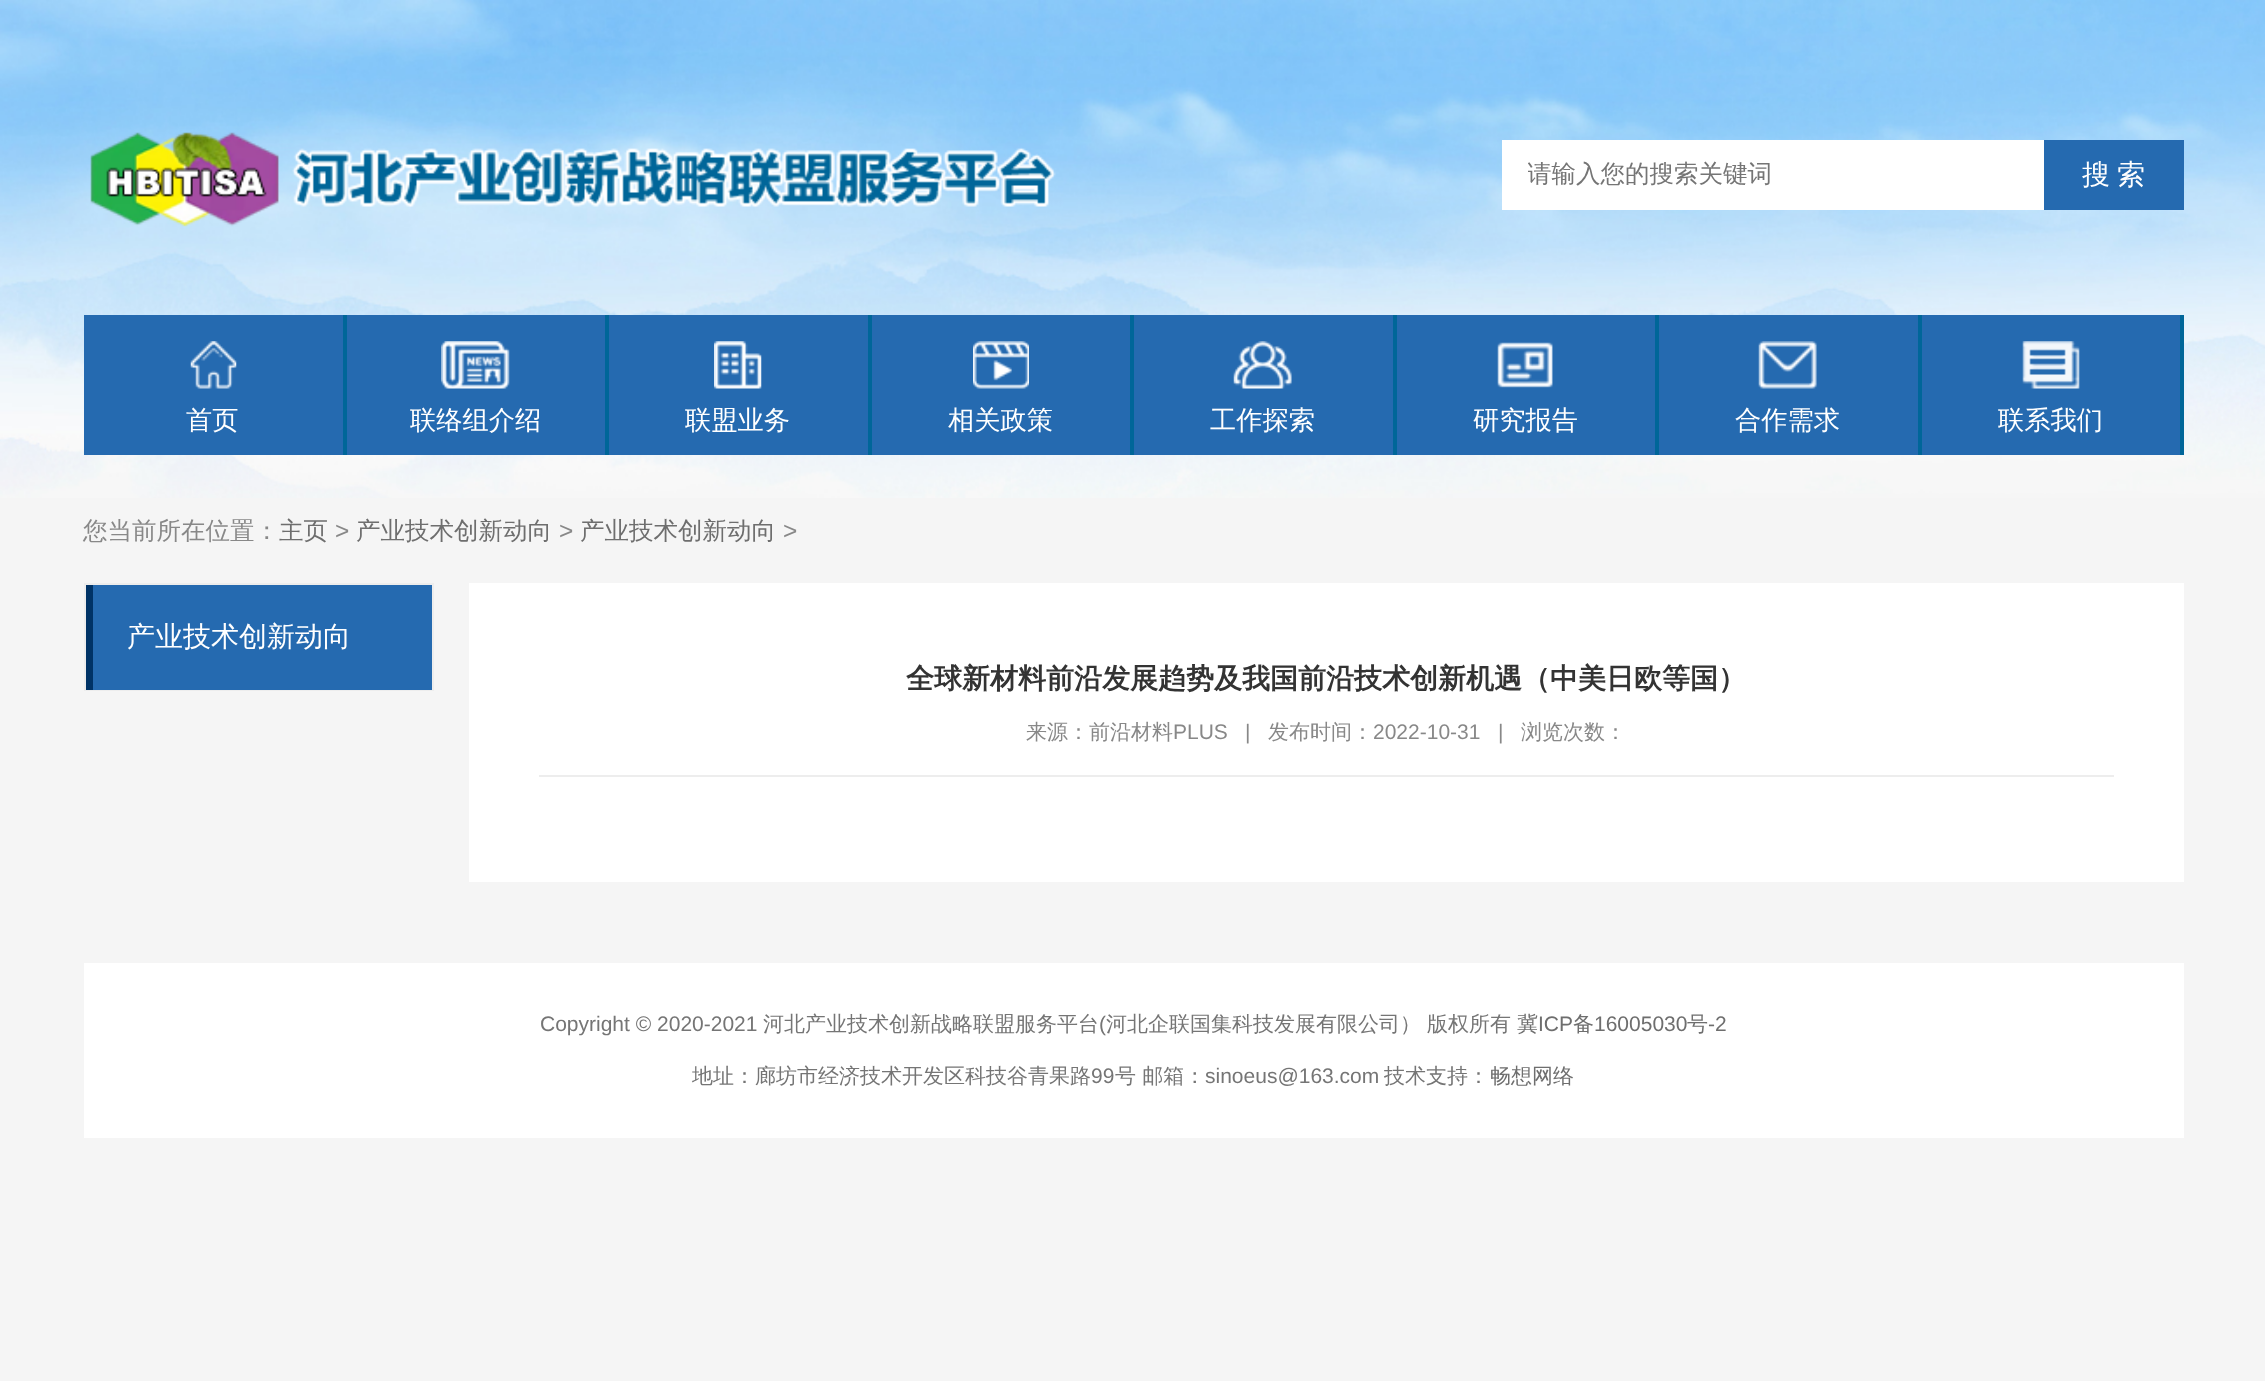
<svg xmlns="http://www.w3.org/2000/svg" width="2265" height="1381">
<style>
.a{font:500 24.5px WenQuanYi Zen Hei;fill:#757575}
.b{font:500 28px WenQuanYi Zen Hei;fill:#fff}
.c{font:500 26.25px WenQuanYi Zen Hei;fill:#fff}
.d{font:500 24.5px WenQuanYi Zen Hei;fill:#888}
.e{font:500 24.5px WenQuanYi Zen Hei;fill:#6e6e6e}
.f{font:24.5px Liberation Sans;fill:#888}
.g{font:bold 28px WenQuanYi Zen Hei;fill:#333}
.h{font:500 21px WenQuanYi Zen Hei;fill:#888}
.i{font:21px Liberation Sans;fill:#888}
.j{font:21px Liberation Sans;fill:#757575}
.k{font:500 21px WenQuanYi Zen Hei;fill:#757575}
.l{font:500 21px WenQuanYi Zen Hei;fill:#6e6e6e}
.m{font:21px Liberation Sans;fill:#6e6e6e}
</style>
<defs>
<clipPath id="clip1"><path d="M1528 159h499v32H1528z"/></clipPath>
</defs>
<rect width="100%" height="100%" fill="#f5f5f5"/>
<image href="1.png" x="0" y="0" width="2265" height="498"/>
<image href="2.png" x="90" y="132" width="966" height="95"/>
<path fill="#fff" d="M1502 140h542v70H1502z"/>
<path fill="#256ab0" d="M2044 140h140v70H2044z"/>
<path fill="#256ab0" d="M84 315h2096v140H84z"/>
<path fill="#069" d="M343 315h4v140H343z"/>
<image href="3.png" x="190" y="341" width="47" height="48"/>
<path fill="#069" d="M605 315h4v140H605z"/>
<image href="4.png" x="441" y="341" width="69" height="48"/>
<path fill="#069" d="M868 315h4v140H868z"/>
<image href="5.png" x="714" y="341" width="48" height="48"/>
<path fill="#069" d="M1130 315h4v140H1130z"/>
<image href="6.png" x="973" y="341" width="56" height="48"/>
<path fill="#069" d="M1393 315h4v140H1393z"/>
<image href="7.png" x="1233" y="341" width="59" height="48"/>
<path fill="#069" d="M1655 315h4v140H1655z"/>
<image href="8.png" x="1497" y="342" width="56" height="46"/>
<path fill="#069" d="M1918 315h4v140H1918z"/>
<image href="9.png" x="1758" y="341" width="59" height="48"/>
<path fill="#069" d="M2180 315h4v140H2180z"/>
<image href="10.png" x="2022" y="341" width="58" height="48"/>
<path fill="none" stroke="#ededed" stroke-width="2" d="M85 584h348v106H85z"/>
<path fill="#256ab0" d="M93 585h339v105H93z"/>
<path fill="#036" d="M86 585h7v105H86z"/>
<path fill="#fff" d="M469 583h1715v299H469z"/>
<path fill="#ededed" d="M539 775h1575v2H539z"/>
<path fill="#fff" d="M84 963h2100v175H84z"/>
<g clip-path="url(#clip1)">
<text class="a" x="1527" y="182">请输入您的搜索关键词</text>
</g>
<text class="b" x="2082" y="184">搜</text>
<text class="b" x="2117" y="184">索</text>
<text class="c" x="186" y="429">首页</text>
<text class="c" x="410" y="429">联络组介绍</text>
<text class="c" x="685" y="429">联盟业务</text>
<text class="c" x="948" y="429">相关政策</text>
<text class="c" x="1210" y="429">工作探索</text>
<text class="c" x="1473" y="429">研究报告</text>
<text class="c" x="1735" y="429">合作需求</text>
<text class="c" x="1998" y="429">联系我们</text>
<text class="d" x="83" y="539">您当前所在位置：</text>
<text class="e" x="279" y="539">主页</text>
<text class="f" x="335" y="539">&gt;</text>
<text class="e" x="356" y="539">产业技术创新动向</text>
<text class="f" x="559" y="539">&gt;</text>
<text class="e" x="580" y="539">产业技术创新动向</text>
<text class="f" x="783" y="539">&gt;</text>
<text class="b" x="127" y="646">产业技术创新动向</text>
<text class="g" x="906" y="688">全球新材料前沿发展趋势及我国前沿技术创新机遇（中美日欧等国）</text>
<text class="h" x="1026" y="739">来源：前沿材料</text>
<text class="i" x="1173" y="739">PLUS</text>
<text class="i" x="1245" y="739">|</text>
<text class="h" x="1268" y="739">发布时间：</text>
<text class="i" x="1373" y="739">2022-10-31</text>
<text class="i" x="1498" y="739">|</text>
<text class="h" x="1521" y="739">浏览次数：</text>
<text class="j" x="540" y="1031">Copyright © 2020-2021</text>
<text class="k" x="763" y="1031">河北产业技术创新战略联盟服务平台</text>
<text class="j" x="1099" y="1031">(</text>
<text class="k" x="1106" y="1031">河北企联国集科技发展有限公司）</text>
<text class="k" x="1427" y="1031">版权所有</text>
<text class="l" x="1517" y="1031">冀</text>
<text class="m" x="1538" y="1031">ICP</text>
<text class="l" x="1573" y="1031">备</text>
<text class="m" x="1594" y="1031">16005030</text>
<text class="l" x="1687" y="1031">号</text>
<text class="m" x="1708" y="1031">-2</text>
<text class="k" x="692" y="1083">地址：廊坊市经济技术开发区科技谷青果路</text>
<text class="j" x="1091" y="1083">99</text>
<text class="k" x="1115" y="1083">号 邮箱：</text>
<text class="j" x="1205" y="1083">sinoeus@163.com</text>
<text class="k" x="1384" y="1083">技术支持：</text>
<text class="l" x="1490" y="1083">畅想网络</text>
</svg>
